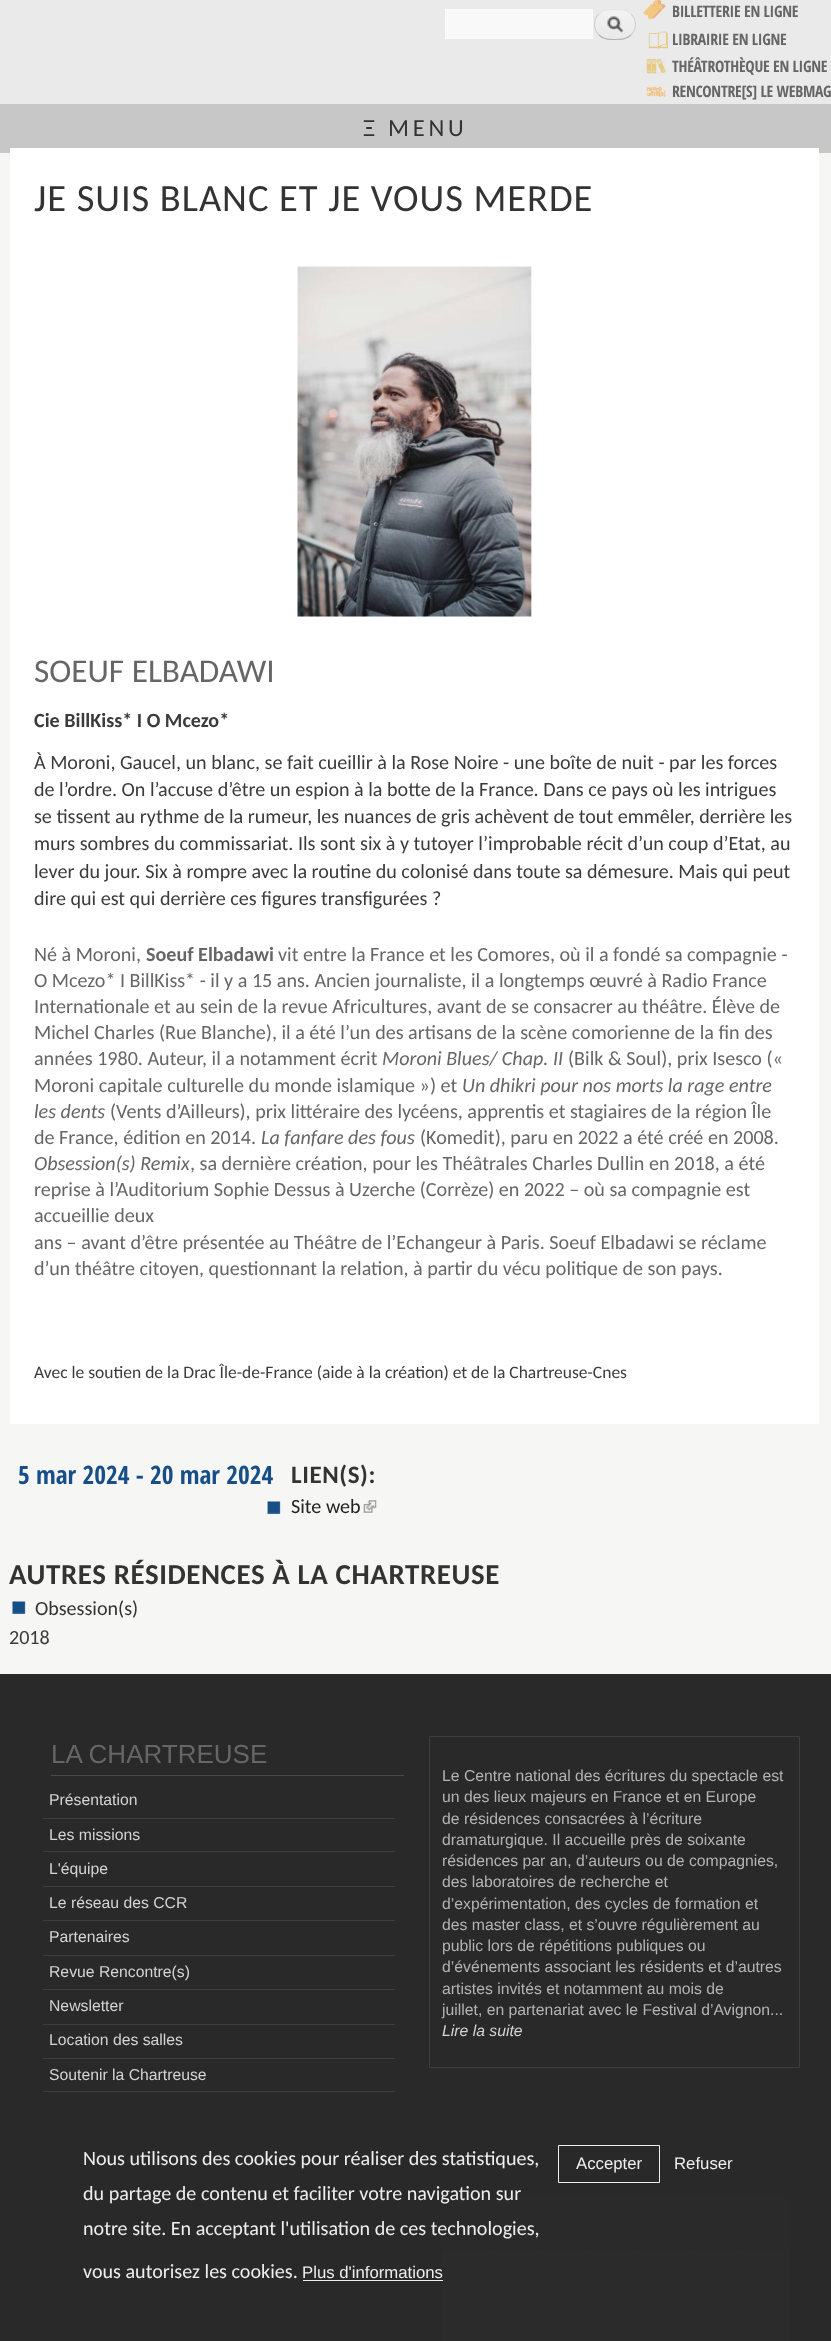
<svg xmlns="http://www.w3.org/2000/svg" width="831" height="2341">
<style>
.a{font:bold 15.75px Open Sans Condensed;letter-spacing:-0.3px;fill:#666}
.b{font:24.5px Carlito;letter-spacing:3.75px;fill:#333}
.c{font:38.5px Carlito;letter-spacing:0.95px;fill:#333}
.d{font:33.25px Carlito;fill:#666}
.e{font:bold 20.1px Carlito;fill:#3b3b3b}
.f{font:20.1px Carlito;fill:#3b3b3b}
.g{font:20.1px Carlito;fill:#666}
.h{font:bold 20.1px Carlito;fill:#666}
.i{font:italic 20.1px Carlito;fill:#666}
.j{font:17.5px Carlito;fill:#3b3b3b}
.k{font:bold 25.4px Open Sans Condensed;fill:#174e88}
.l{font:bold 25px Carlito;letter-spacing:0.6px;fill:#333}
.m{font:20.1px Carlito;fill:#222}
.n{font:bold 28.9px Carlito;letter-spacing:0.6px;fill:#333}
.o{font:20.1px Carlito;fill:#333}
.p{font:26px Liberation Sans;fill:#666}
.q{font:15.75px Liberation Sans;fill:#d4d4d4}
.r{font:15.75px Liberation Sans;fill:#b4b4b4}
.s{font:italic 15.75px Liberation Sans;fill:#d4d4d4}
.t{font:20.1px Carlito;fill:#eee}
.u{font:16.75px Liberation Sans;fill:#eee}
</style>
<rect width="100%" height="100%" fill="#f6f6f4"/>
<path fill="#eaeaea" d="M0 0h831v104H0z"/>
<path fill="#f9f9f9" stroke="#fbfbfb" d="M445.5 9.5h147v29H445.5z"/>
<image href="1.png" x="594" y="10" width="42" height="23"/>
<path fill="none" stroke="#e4e4e4" stroke-width="1.2" d="M599 14c4.5-5 10-4.5 16-4.5c6 0 11.5-.5 16 4.5"/>
<path fill="none" stroke="#d2d2d2" stroke-width="1.2" d="M631 14c6 5.5 6 15 0 21"/>
<path fill="none" stroke="#b4b4b4" stroke-width="1.2" d="M631 35c-4.5 4.5-10 4.5-16 4.5c-6 0-11.5 0-16-4.5"/>
<path fill="none" stroke="#d2d2d2" stroke-width="1.2" d="M599 35c-6-6-6-15.5 0-21"/>
<image href="2.png" x="643" y="0" width="23" height="20"/>
<image href="3.png" x="648" y="31" width="20" height="18"/>
<image href="4.png" x="646" y="58" width="20" height="16"/>
<image href="5.png" x="646" y="86" width="20" height="11"/>
<path fill="#c7c7c7" d="M0 104h831v49H0z"/>
<path fill="#fff" d="M10 148h809v1276H10z"/>
<image href="6.png" x="297" y="266" width="235" height="351"/>
<image href="7.png" x="267" y="1501" width="14" height="13"/>
<image href="8.png" x="363" y="1500" width="14" height="13"/>
<image href="9.png" x="12" y="1601" width="14" height="13"/>
<path fill="#292929" d="M0 1674h831v667H0z"/>
<path fill="#494949" d="M51 1775h353v1H51z"/>
<path fill="#3e3e3e" d="M43 1818h352v1H43z"/>
<path fill="#3e3e3e" d="M43 1851h352v1H43z"/>
<path fill="#3e3e3e" d="M43 1886h352v1H43z"/>
<path fill="#3e3e3e" d="M43 1920h352v1H43z"/>
<path fill="#3e3e3e" d="M43 1955h352v1H43z"/>
<path fill="#3e3e3e" d="M43 1989h352v1H43z"/>
<path fill="#3e3e3e" d="M43 2024h352v1H43z"/>
<path fill="#3e3e3e" d="M43 2058h352v1H43z"/>
<path fill="#3e3e3e" d="M43 2091h352v1H43z"/>
<path fill="#3e3e3e" d="M43 2126h352v1H43z"/>
<path fill="#3e3e3e" d="M43 2160h352v1H43z"/>
<path fill="none" stroke="#3e3e3e" d="M429.5 1736.5h370v331H429.5z"/>
<path fill="none" stroke="#3e3e3e" d="M31.5 2196.5h372v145H31.5z"/>
<path fill="#494949" d="M45 2249h345v1H45z"/>
<path fill="#3b3b3b" d="M441 2196h347v54H441z"/>
<path fill="#545454" d="M442 2251h48v24H442z"/>
<path fill="#5b5b5b" d="M441 2250h1v25H441z"/>
<path fill="#5b5b5b" d="M441 2250h99v1H441z"/>
<path fill="#626262" d="M441 2250h1v1H441z"/>
<path fill="#626262" d="M490 2250h1v25H490z"/>
<path fill="#6e6e6e" d="M490 2250h1v1H490z"/>
<path fill="#545454" d="M541 2251h49v24H541z"/>
<path fill="#626262" d="M540 2250h1v25H540z"/>
<path fill="#5b5b5b" d="M540 2250h50v1H540z"/>
<path fill="#6e6e6e" d="M540 2250h1v1H540z"/>
<path fill="#545454" d="M591 2251h48v24H591z"/>
<path fill="#626262" d="M590 2250h1v25H590z"/>
<path fill="#5b5b5b" d="M590 2250h99v1H590z"/>
<path fill="#6e6e6e" d="M590 2250h1v1H590z"/>
<path fill="#626262" d="M639 2250h1v25H639z"/>
<path fill="#6e6e6e" d="M639 2250h1v1H639z"/>
<path fill="#545454" d="M690 2251h49v24H690z"/>
<path fill="#626262" d="M689 2250h1v25H689z"/>
<path fill="#5b5b5b" d="M689 2250h50v1H689z"/>
<path fill="#6e6e6e" d="M689 2250h1v1H689z"/>
<path fill="#545454" d="M740 2251h48v24H740z"/>
<path fill="#626262" d="M739 2250h1v25H739z"/>
<path fill="#5b5b5b" d="M788 2250h1v25H788z"/>
<path fill="#5b5b5b" d="M739 2250h50v1H739z"/>
<path fill="#6e6e6e" d="M739 2250h1v1H739z"/>
<path fill="#626262" d="M788 2250h1v1H788z"/>
<path fill="#545454" d="M491 2251h49v24H491z"/>
<path fill="#545454" d="M640 2251h49v24H640z"/>
<path fill="#4d4d4d" d="M689 2276h100v32H689z"/>
<path fill="#545454" d="M689 2275h100v1H689z"/>
<path fill="#686868" d="M689 2275h1v1H689z"/>
<path fill="#686868" d="M739 2275h1v1H739z"/>
<path fill="#5b5b5b" d="M788 2275h1v1H788z"/>
<path fill="#515151" d="M441 2276h248v32H441z"/>
<path fill="#585858" d="M441 2275h248v1H441z"/>
<path fill="#5f5f5f" d="M441 2275h1v1H441z"/>
<path fill="#6b6b6b" d="M490 2275h1v1H490z"/>
<path fill="#6b6b6b" d="M540 2275h1v1H540z"/>
<path fill="#6b6b6b" d="M590 2275h1v1H590z"/>
<path fill="#6b6b6b" d="M639 2275h1v1H639z"/>
<path fill="#4d4d4d" d="M441 2308h348v33H441z"/>
<path fill="#292929f2" d="M31 2126h758v215H31z"/>
<path fill="#eee" d="M303 2280h140v1H303z"/>
<path fill="none" stroke="#eee" d="M558.5 2145.5h101v37H558.5z"/>
<text class="a" x="672" y="17">BILLETTERIE EN LIGNE</text>
<text class="a" x="672" y="45">LIBRAIRIE EN LIGNE</text>
<text class="a" x="672" y="72">THÉÂTROTHÈQUE EN LIGNE</text>
<text class="a" x="672" y="97">RENCONTRE[S] LE WEBMAG</text>
<text class="b" x="363" y="136">Ξ MENU</text>
<text class="c" x="34" y="211">JE SUIS BLANC ET JE VOUS MERDE</text>
<text class="d" x="34" y="682">SOEUF ELBADAWI</text>
<text class="e" x="34" y="727">Cie BillKiss* I O Mcezo*</text>
<text class="f" x="34" y="769">À Moroni, Gaucel, un blanc, se fait cueillir à la Rose Noire - une boîte de nuit - par les forces</text>
<text class="f" x="34" y="796">de l’ordre. On l’accuse d’être un espion à la botte de la France. Dans ce pays où les intrigues</text>
<text class="f" x="34" y="823">se tissent au rythme de la rumeur, les nuances de gris achèvent de tout emmêler, derrière les</text>
<text class="f" x="34" y="850">murs sombres du commissariat. Ils sont six à y tutoyer l’improbable récit d’un coup d’Etat, au</text>
<text class="f" x="34" y="878">lever du jour. Six à rompre avec la routine du colonisé dans toute sa démesure. Mais qui peut</text>
<text class="f" x="34" y="905">dire qui est qui derrière ces figures transfigurées ?</text>
<text class="g" x="34" y="961">Né à Moroni,</text>
<text class="h" x="146" y="961">Soeuf Elbadawi</text>
<text class="g" x="278" y="961">vit entre la France et les Comores, où il a fondé sa compagnie -</text>
<text class="g" x="34" y="987">O Mcezo* I BillKiss* - il y a 15 ans. Ancien journaliste, il a longtemps œuvré à Radio France</text>
<text class="g" x="34" y="1013">Internationale et au sein de la revue Africultures, avant de se consacrer au théâtre. Élève de</text>
<text class="g" x="34" y="1039">Michel Charles (Rue Blanche), il a été l’un des artisans de la scène comorienne de la fin des</text>
<text class="g" x="34" y="1065">années 1980. Auteur, il a notamment écrit</text>
<text class="i" x="382" y="1065">Moroni Blues/ Chap. II</text>
<text class="g" x="568" y="1065">(Bilk &amp; Soul), prix Isesco («</text>
<text class="g" x="34" y="1092">Moroni capitale culturelle du monde islamique ») et</text>
<text class="i" x="462" y="1092">Un dhikri pour nos morts la rage entre</text>
<text class="i" x="34" y="1118">les dents</text>
<text class="g" x="110" y="1118">(Vents d’Ailleurs), prix littéraire des lycéens, apprentis et stagiaires de la région Île</text>
<text class="g" x="34" y="1144">de France, édition en 2014.</text>
<text class="i" x="261" y="1144">La fanfare des fous</text>
<text class="g" x="420" y="1144">(Komedit), paru en 2022 a été créé en 2008.</text>
<text class="i" x="34" y="1170">Obsession(s) Remix</text>
<text class="g" x="190" y="1170">, sa dernière création, pour les Théâtrales Charles Dullin en 2018, a été</text>
<text class="g" x="34" y="1196">reprise à l’Auditorium Sophie Dessus à Uzerche (Corrèze) en 2022 – où sa compagnie est</text>
<text class="g" x="34" y="1222">accueillie deux</text>
<text class="g" x="34" y="1249">ans – avant d’être présentée au Théâtre de l’Echangeur à Paris. Soeuf Elbadawi se réclame</text>
<text class="g" x="34" y="1275">d’un théâtre citoyen, questionnant la relation, à partir du vécu politique de son pays.</text>
<text class="j" x="34" y="1378">Avec le soutien de la Drac Île-de-France (aide à la création) et de la Chartreuse-Cnes</text>
<text class="k" x="18" y="1484">5 mar 2024 - 20 mar 2024</text>
<text class="l" x="291" y="1483">LIEN(S):</text>
<text class="m" x="291" y="1513">Site web</text>
<text class="n" x="9" y="1584">AUTRES RÉSIDENCES À LA CHARTREUSE</text>
<text class="o" x="35" y="1615">Obsession(s)</text>
<text class="f" x="9" y="1644">2018</text>
<text class="p" x="51" y="1763">LA CHARTREUSE</text>
<text class="q" x="49" y="1805">Présentation</text>
<text class="q" x="49" y="1840">Les missions</text>
<text class="q" x="49" y="1874">L'équipe</text>
<text class="q" x="49" y="1908">Le réseau des CCR</text>
<text class="q" x="49" y="1942">Partenaires</text>
<text class="q" x="49" y="1977">Revue Rencontre(s)</text>
<text class="q" x="49" y="2011">Newsletter</text>
<text class="q" x="49" y="2045">Location des salles</text>
<text class="q" x="49" y="2080">Soutenir la Chartreuse</text>
<text class="r" x="442" y="1781">Le Centre national des écritures du spectacle est</text>
<text class="r" x="442" y="1802">un des lieux majeurs en France et en Europe</text>
<text class="r" x="442" y="1824">de résidences consacrées à l’écriture</text>
<text class="r" x="442" y="1845">dramaturgique. Il accueille près de soixante</text>
<text class="r" x="442" y="1866">résidences par an, d’auteurs ou de compagnies,</text>
<text class="r" x="442" y="1887">des laboratoires de recherche et</text>
<text class="r" x="442" y="1909">d’expérimentation, des cycles de formation et</text>
<text class="r" x="442" y="1930">des master class, et s’ouvre régulièrement au</text>
<text class="r" x="442" y="1951">public lors de répétitions publiques ou</text>
<text class="r" x="442" y="1972">d’événements associant les résidents et d’autres</text>
<text class="r" x="442" y="1994">artistes invités et notamment au mois de</text>
<text class="r" x="442" y="2015">juillet, en partenariat avec le Festival d’Avignon...</text>
<text class="s" x="442" y="2036">Lire la suite</text>
<text class="t" x="83" y="2165">Nous utilisons des cookies pour réaliser des statistiques,</text>
<text class="t" x="83" y="2200">du partage de contenu et faciliter votre navigation sur</text>
<text class="t" x="83" y="2235">notre site. En acceptant l'utilisation de ces technologies,</text>
<text class="t" x="83" y="2278">vous autorisez les cookies.</text>
<text class="u" x="302" y="2278">Plus d'informations</text>
<text class="u" x="576" y="2169">Accepter</text>
<text class="u" x="674" y="2169">Refuser</text>
</svg>
